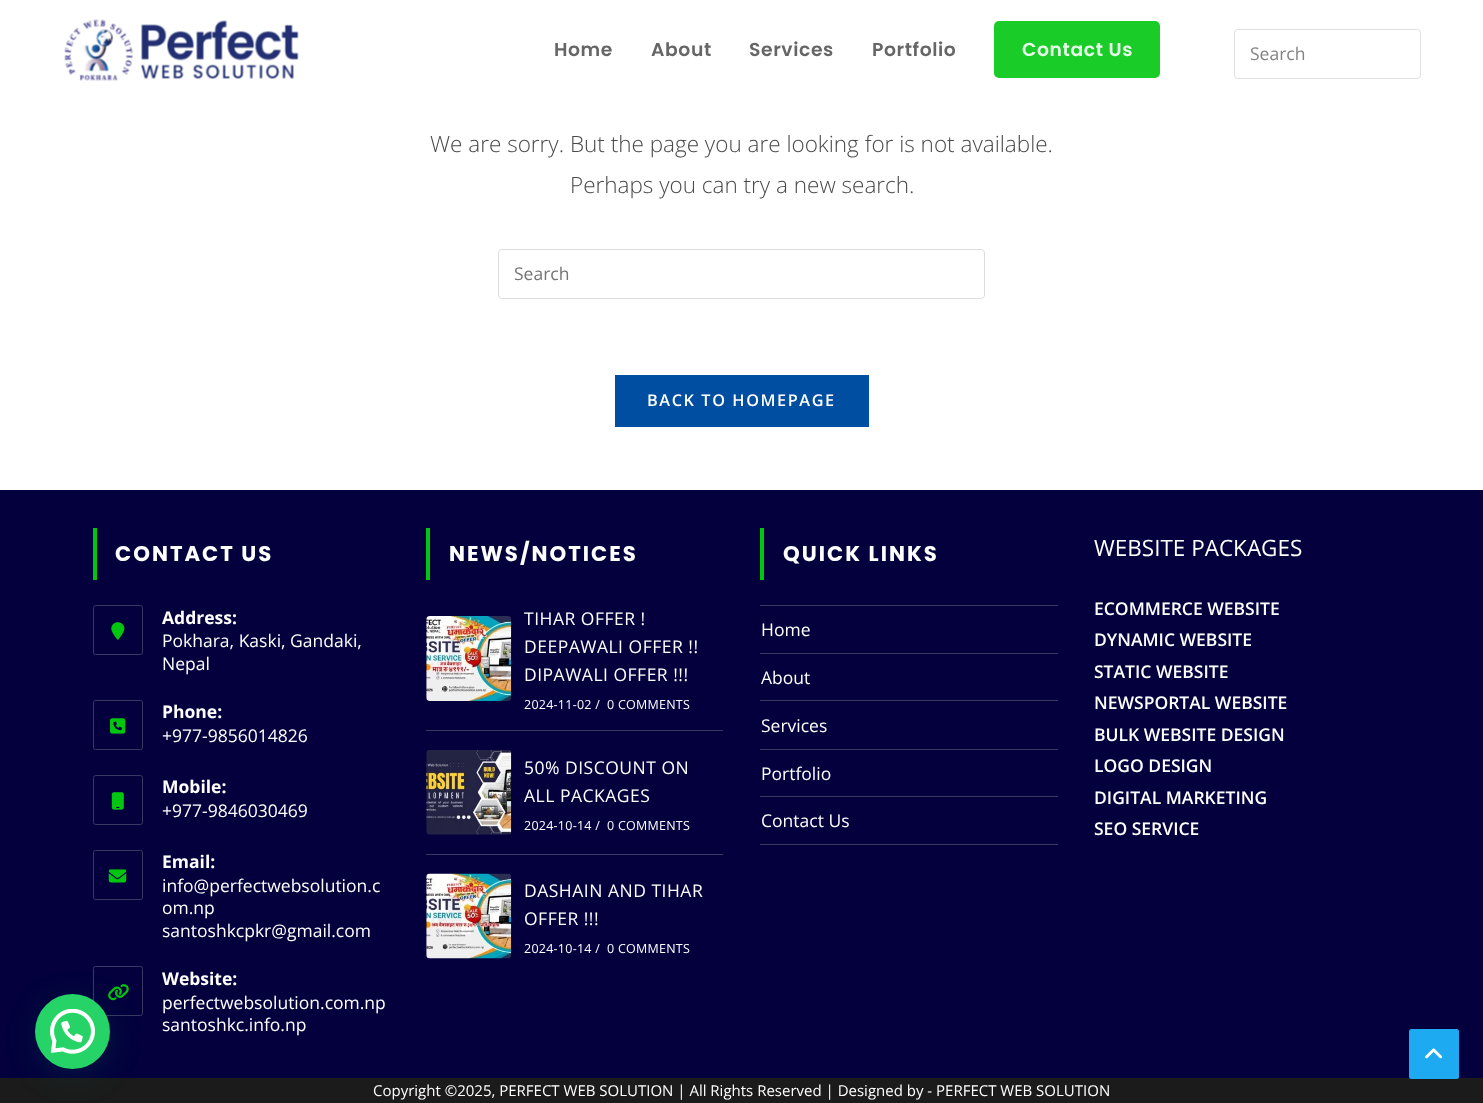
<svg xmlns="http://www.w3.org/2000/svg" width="1483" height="1103">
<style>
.a{font:600 18.75px Poppins;letter-spacing:0.6px;fill:#666}
.b{font:600 18.75px Poppins;letter-spacing:0.6px;fill:#e8faea}
.c{font:17.5px Open Sans;fill:#838383}
.d{font:300 22.5px Open Sans;fill:#4a4a4a}
.e{font:17.5px Open Sans;fill:#757575}
.f{font:600 16.25px Open Sans;letter-spacing:1.6px;fill:#fff}
.g{font:bold 21.25px Poppins;letter-spacing:2px;fill:#fff}
.h{font:bold 17.5px Open Sans;fill:#fff}
.i{font:17.5px Open Sans;fill:#fff}
.j{font:17.5px Open Sans;letter-spacing:0.5px;fill:#fff}
.k{font:12.5px Open Sans;letter-spacing:0.25px;fill:#fff}
.l{font:22.5px Open Sans;fill:#fff}
.m{font:600 17.5px Open Sans;fill:#fff}
.n{font:15px Open Sans;fill:#fff}
</style>
<rect width="100%" height="100%" fill="#fff"/>
<path fill="#03003d" d="M0 490h1483v588H0z"/>
<rect fill="none" stroke="#3a3763" x="93.5" y="966.5" width="49" height="49" rx="2"/>
<image href="7.png" x="108" y="984" width="21" height="17"/>
<path fill="#1b1b1b" d="M0 1078h1483v25H0z"/>
<rect fill="#075e543d" filter="blur(15px)" x="36" y="1001" width="75" height="75" rx="37.5"/>
<circle fill="#25d366" cx="72.5" cy="1031.5" r="37.5"/>
<image href="1.png" x="50" y="1009" width="45" height="45"/>
<image href="2.png" x="64" y="19" width="235" height="62"/>
<rect fill="#19cc28" x="994" y="21" width="166" height="57" rx="5"/>
<rect fill="none" stroke="#e0e0e0" x="1234.5" y="29.5" width="186" height="49" rx="3.5"/>
<rect fill="none" stroke="#ddd" x="498.5" y="249.5" width="486" height="49" rx="3.5"/>
<path fill="#004ea2" d="M615 375h254v52H615z"/>
<path fill="#00c610" d="M93 528h4v52H93z"/>
<rect fill="none" stroke="#3a3763" x="93.5" y="605.5" width="49" height="49" rx="2"/>
<image href="3.png" x="111" y="622" width="14" height="18"/>
<rect fill="none" stroke="#3a3763" x="93.5" y="700.5" width="49" height="49" rx="2"/>
<image href="4.png" x="110" y="718" width="16" height="16"/>
<rect fill="none" stroke="#3a3763" x="93.5" y="775.5" width="49" height="49" rx="2"/>
<image href="5.png" x="111" y="792" width="13" height="18"/>
<rect fill="none" stroke="#3a3763" x="93.5" y="850.5" width="49" height="49" rx="2"/>
<image href="6.png" x="108" y="869" width="19" height="14"/>
<path fill="#00c610" d="M426 528h4v52H426z"/>
<image href="8.png" x="426" y="616" width="86" height="85"/>
<path fill="#3a3763" d="M426 730h297v1H426z"/>
<image href="9.png" x="426" y="749" width="86" height="86"/>
<path fill="#3a3763" d="M426 854h297v1H426z"/>
<image href="10.png" x="426" y="873" width="86" height="86"/>
<path fill="#00c610" d="M760 528h4v52H760z"/>
<path fill="#3a3763" d="M760 605h298v1H760z"/>
<path fill="#3a3763" d="M760 653h298v1H760z"/>
<path fill="#3a3763" d="M760 700h298v1H760z"/>
<path fill="#3a3763" d="M760 749h298v1H760z"/>
<path fill="#3a3763" d="M760 796h298v1H760z"/>
<path fill="#3a3763" d="M760 844h298v1H760z"/>
<rect fill="#1eaaf1" x="1409" y="1029" width="50" height="50" rx="2.5"/>
<image href="11.png" x="1425" y="1048" width="17" height="11"/>
<text class="a" x="554" y="56">Home</text>
<text class="a" x="651" y="56">About</text>
<text class="a" x="749" y="56">Services</text>
<text class="a" x="872" y="56">Portfolio</text>
<text class="b" x="1022" y="56">Contact Us</text>
<text class="c" x="1250" y="60">Search</text>
<text class="d" x="430" y="152">We are sorry. But the page you are looking for is not available.</text>
<text class="d" x="570" y="193">Perhaps you can try a new search.</text>
<text class="e" x="514" y="280">Search</text>
<text class="f" x="647" y="406">BACK TO HOMEPAGE</text>
<text class="g" x="115" y="561">CONTACT US</text>
<text class="h" x="162" y="624">Address:</text>
<text class="i" x="162" y="647">Pokhara, Kaski, Gandaki,</text>
<text class="i" x="162" y="670">Nepal</text>
<text class="h" x="162" y="718">Phone:</text>
<text class="i" x="162" y="742">+977-9856014826</text>
<text class="h" x="162" y="793">Mobile:</text>
<text class="i" x="162" y="817">+977-9846030469</text>
<text class="h" x="162" y="868">Email:</text>
<text class="i" x="162" y="892">info@perfectwebsolution.c</text>
<text class="i" x="162" y="914">om.np</text>
<text class="i" x="162" y="937">santoshkcpkr@gmail.com</text>
<text class="h" x="162" y="985">Website:</text>
<text class="i" x="162" y="1009">perfectwebsolution.com.np</text>
<text class="i" x="162" y="1031">santoshkc.info.np</text>
<text class="g" x="449" y="561">NEWS/NOTICES</text>
<text class="j" x="524" y="625">TIHAR OFFER !</text>
<text class="j" x="524" y="653">DEEPAWALI OFFER !!</text>
<text class="j" x="524" y="681">DIPAWALI OFFER !!!</text>
<text class="k" x="524" y="709">2024-11-02 /</text>
<text class="k" x="607" y="709">0 COMMENTS</text>
<text class="j" x="524" y="774">50% DISCOUNT ON</text>
<text class="j" x="524" y="802">ALL PACKAGES</text>
<text class="k" x="524" y="830">2024-10-14 /</text>
<text class="k" x="607" y="830">0 COMMENTS</text>
<text class="j" x="524" y="897">DASHAIN AND TIHAR</text>
<text class="j" x="524" y="925">OFFER !!!</text>
<text class="k" x="524" y="953">2024-10-14 /</text>
<text class="k" x="607" y="953">0 COMMENTS</text>
<text class="g" x="783" y="561">QUICK LINKS</text>
<text class="i" x="761" y="636">Home</text>
<text class="i" x="761" y="684">About</text>
<text class="i" x="761" y="732">Services</text>
<text class="i" x="761" y="780">Portfolio</text>
<text class="i" x="761" y="827">Contact Us</text>
<text class="l" x="1094" y="556">WEBSITE PACKAGES</text>
<text class="m" x="1094" y="615">ECOMMERCE WEBSITE</text>
<text class="m" x="1094" y="646">DYNAMIC WEBSITE</text>
<text class="m" x="1094" y="678">STATIC WEBSITE</text>
<text class="m" x="1094" y="709">NEWSPORTAL WEBSITE</text>
<text class="m" x="1094" y="741">BULK WEBSITE DESIGN</text>
<text class="m" x="1094" y="772">LOGO DESIGN</text>
<text class="m" x="1094" y="804">DIGITAL MARKETING</text>
<text class="m" x="1094" y="835">SEO SERVICE</text>
<text class="n" x="373" y="1096">Copyright ©2025, PERFECT WEB SOLUTION | All Rights Reserved | Designed by - PERFECT WEB SOLUTION</text>
</svg>
